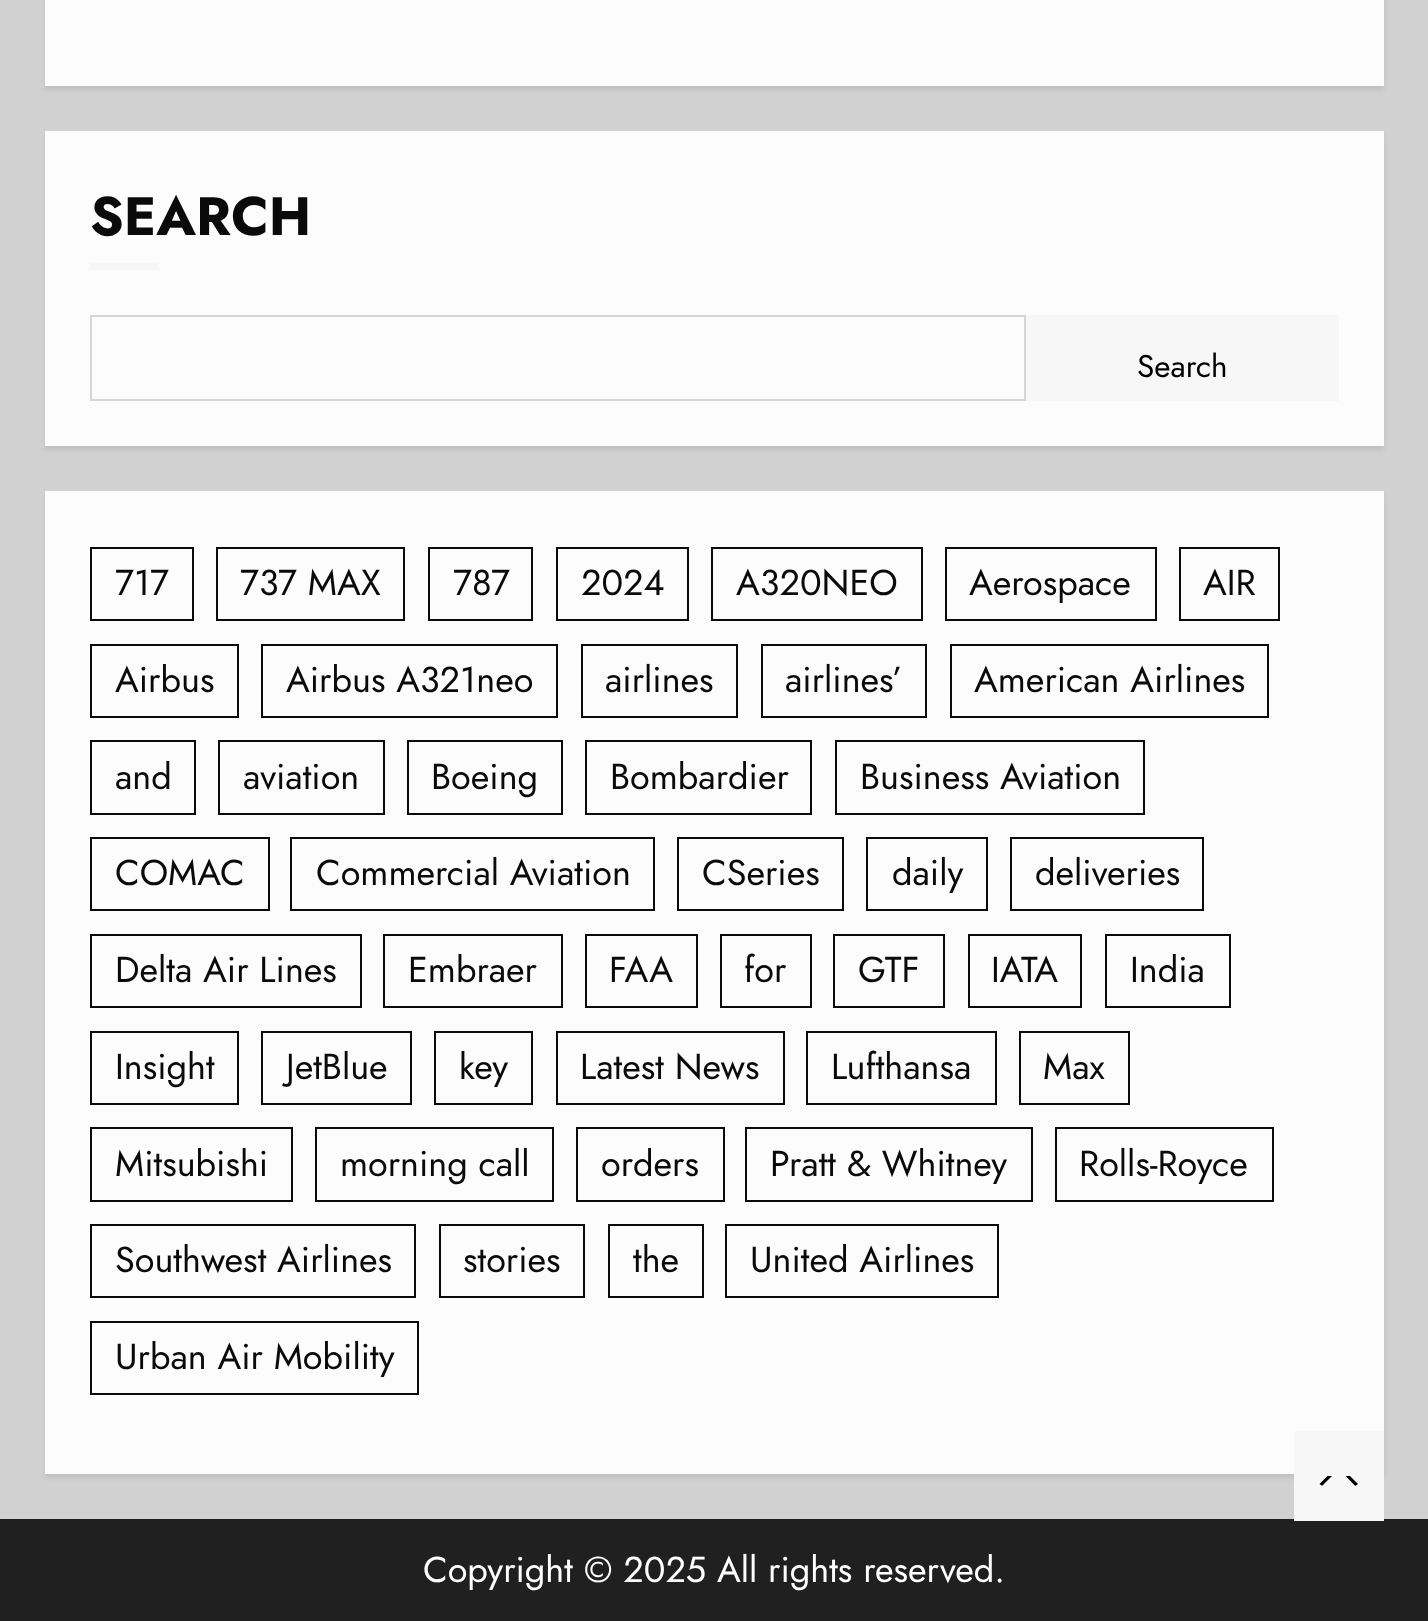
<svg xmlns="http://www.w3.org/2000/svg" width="1428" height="1621">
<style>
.a{font:bold 54px Jost;fill:#0a0a0a}
.b{font:31.5px Jost;fill:#000}
.c{font:36px Jost;fill:#0a0a0a}
.d{font:36px Jost;fill:#fff}
</style>
<rect width="100%" height="100%" fill="#d1d1d1"/>
<path fill="#00000014" filter="blur(2px)" d="M45 -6h1339v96H45z"/>
<path fill="#fcfcfc" d="M45 0h1339v86H45z"/>
<path fill="#00000014" filter="blur(2px)" d="M45 135h1339v315H45z"/>
<path fill="#fcfcfc" d="M45 131h1339v315H45z"/>
<path fill="#f7f7f7" d="M90 263h68v7H90z"/>
<path fill="none" stroke="#d6d6d6" stroke-width="2" d="M91 316h934v84H91z"/>
<path fill="#f7f7f7" d="M1026 315h313v86H1026z"/>
<path fill="#00000014" filter="blur(2px)" d="M45 495h1339v983H45z"/>
<path fill="#fcfcfc" d="M45 491h1339v983H45z"/>
<path fill="none" stroke="#0a0a0a" stroke-width="2" d="M91 548h102v72H91z"/>
<path fill="none" stroke="#0a0a0a" stroke-width="2" d="M217 548h187v72H217z"/>
<path fill="none" stroke="#0a0a0a" stroke-width="2" d="M429 548h103v72H429z"/>
<path fill="none" stroke="#0a0a0a" stroke-width="2" d="M557 548h131v72H557z"/>
<path fill="none" stroke="#0a0a0a" stroke-width="2" d="M712 548h210v72H712z"/>
<path fill="none" stroke="#0a0a0a" stroke-width="2" d="M946 548h210v72H946z"/>
<path fill="none" stroke="#0a0a0a" stroke-width="2" d="M1180 548h99v72H1180z"/>
<path fill="none" stroke="#0a0a0a" stroke-width="2" d="M91 645h147v72H91z"/>
<path fill="none" stroke="#0a0a0a" stroke-width="2" d="M262 645h295v72H262z"/>
<path fill="none" stroke="#0a0a0a" stroke-width="2" d="M582 645h155v72H582z"/>
<path fill="none" stroke="#0a0a0a" stroke-width="2" d="M762 645h164v72H762z"/>
<path fill="none" stroke="#0a0a0a" stroke-width="2" d="M951 645h317v72H951z"/>
<path fill="none" stroke="#0a0a0a" stroke-width="2" d="M91 741h104v73H91z"/>
<path fill="none" stroke="#0a0a0a" stroke-width="2" d="M219 741h165v73H219z"/>
<path fill="none" stroke="#0a0a0a" stroke-width="2" d="M408 741h154v73H408z"/>
<path fill="none" stroke="#0a0a0a" stroke-width="2" d="M586 741h225v73H586z"/>
<path fill="none" stroke="#0a0a0a" stroke-width="2" d="M836 741h308v73H836z"/>
<path fill="none" stroke="#0a0a0a" stroke-width="2" d="M91 838h178v72H91z"/>
<path fill="none" stroke="#0a0a0a" stroke-width="2" d="M291 838h363v72H291z"/>
<path fill="none" stroke="#0a0a0a" stroke-width="2" d="M678 838h165v72H678z"/>
<path fill="none" stroke="#0a0a0a" stroke-width="2" d="M867 838h120v72H867z"/>
<path fill="none" stroke="#0a0a0a" stroke-width="2" d="M1011 838h192v72H1011z"/>
<path fill="none" stroke="#0a0a0a" stroke-width="2" d="M91 935h270v72H91z"/>
<path fill="none" stroke="#0a0a0a" stroke-width="2" d="M384 935h178v72H384z"/>
<path fill="none" stroke="#0a0a0a" stroke-width="2" d="M586 935h111v72H586z"/>
<path fill="none" stroke="#0a0a0a" stroke-width="2" d="M721 935h90v72H721z"/>
<path fill="none" stroke="#0a0a0a" stroke-width="2" d="M834 935h110v72H834z"/>
<path fill="none" stroke="#0a0a0a" stroke-width="2" d="M969 935h112v72H969z"/>
<path fill="none" stroke="#0a0a0a" stroke-width="2" d="M1106 935h124v72H1106z"/>
<path fill="none" stroke="#0a0a0a" stroke-width="2" d="M91 1032h147v72H91z"/>
<path fill="none" stroke="#0a0a0a" stroke-width="2" d="M262 1032h149v72H262z"/>
<path fill="none" stroke="#0a0a0a" stroke-width="2" d="M435 1032h97v72H435z"/>
<path fill="none" stroke="#0a0a0a" stroke-width="2" d="M557 1032h227v72H557z"/>
<path fill="none" stroke="#0a0a0a" stroke-width="2" d="M807 1032h189v72H807z"/>
<path fill="none" stroke="#0a0a0a" stroke-width="2" d="M1020 1032h109v72H1020z"/>
<path fill="none" stroke="#0a0a0a" stroke-width="2" d="M91 1128h201v73H91z"/>
<path fill="none" stroke="#0a0a0a" stroke-width="2" d="M316 1128h237v73H316z"/>
<path fill="none" stroke="#0a0a0a" stroke-width="2" d="M577 1128h147v73H577z"/>
<path fill="none" stroke="#0a0a0a" stroke-width="2" d="M746 1128h286v73H746z"/>
<path fill="none" stroke="#0a0a0a" stroke-width="2" d="M1056 1128h217v73H1056z"/>
<path fill="none" stroke="#0a0a0a" stroke-width="2" d="M91 1225h324v72H91z"/>
<path fill="none" stroke="#0a0a0a" stroke-width="2" d="M440 1225h144v72H440z"/>
<path fill="none" stroke="#0a0a0a" stroke-width="2" d="M609 1225h94v72H609z"/>
<path fill="none" stroke="#0a0a0a" stroke-width="2" d="M726 1225h272v72H726z"/>
<path fill="none" stroke="#0a0a0a" stroke-width="2" d="M91 1322h327v72H91z"/>
<path fill="#202020" d="M0 1519h1428v102H0z"/>
<path fill="#f7f7f7" d="M1294 1431h90v90H1294z"/>
<path fill="#000" d="M1358 1484c-2 2-5 3-8 3h-22c-3.5 0-6.5-1-8.5-3l8-8h22.5z"/>
<path fill="#f7f7f7" d="M1361 1492h-45l23-23z"/>
<text class="a" x="90" y="235">SEARCH</text>
<text class="b" x="1137" y="377">Search</text>
<text class="c" x="115" y="595">717</text>
<text class="c" x="240" y="595">737 MAX</text>
<text class="c" x="453" y="595">787</text>
<text class="c" x="581" y="595">2024</text>
<text class="c" x="736" y="595">A320NEO</text>
<text class="c" x="969" y="595">Aerospace</text>
<text class="c" x="1203" y="595">AIR</text>
<text class="c" x="115" y="692">Airbus</text>
<text class="c" x="286" y="692">Airbus A321neo</text>
<text class="c" x="605" y="692">airlines</text>
<text class="c" x="785" y="692">airlines’</text>
<text class="c" x="974" y="692">American Airlines</text>
<text class="c" x="115" y="789">and</text>
<text class="c" x="243" y="789">aviation</text>
<text class="c" x="431" y="789">Boeing</text>
<text class="c" x="610" y="789">Bombardier</text>
<text class="c" x="860" y="789">Business Aviation</text>
<text class="c" x="115" y="885">COMAC</text>
<text class="c" x="316" y="885">Commercial Aviation</text>
<text class="c" x="702" y="885">CSeries</text>
<text class="c" x="892" y="885">daily</text>
<text class="c" x="1035" y="885">deliveries</text>
<text class="c" x="115" y="982">Delta Air Lines</text>
<text class="c" x="408" y="982">Embraer</text>
<text class="c" x="609" y="982">FAA</text>
<text class="c" x="744" y="982">for</text>
<text class="c" x="858" y="982">GTF</text>
<text class="c" x="991" y="982">IATA</text>
<text class="c" x="1130" y="982">India</text>
<text class="c" x="115" y="1079">Insight</text>
<text class="c" x="286" y="1079">JetBlue</text>
<text class="c" x="459" y="1079">key</text>
<text class="c" x="580" y="1079">Latest News</text>
<text class="c" x="831" y="1079">Lufthansa</text>
<text class="c" x="1043" y="1079">Max</text>
<text class="c" x="115" y="1176">Mitsubishi</text>
<text class="c" x="340" y="1176">morning call</text>
<text class="c" x="601" y="1176">orders</text>
<text class="c" x="770" y="1176">Pratt &amp; Whitney</text>
<text class="c" x="1079" y="1176">Rolls-Royce</text>
<text class="c" x="115" y="1272">Southwest Airlines</text>
<text class="c" x="463" y="1272">stories</text>
<text class="c" x="633" y="1272">the</text>
<text class="c" x="750" y="1272">United Airlines</text>
<text class="c" x="115" y="1369">Urban Air Mobility</text>
<text class="d" x="423" y="1582">Copyright © 2025 All rights reserved.</text>
</svg>
